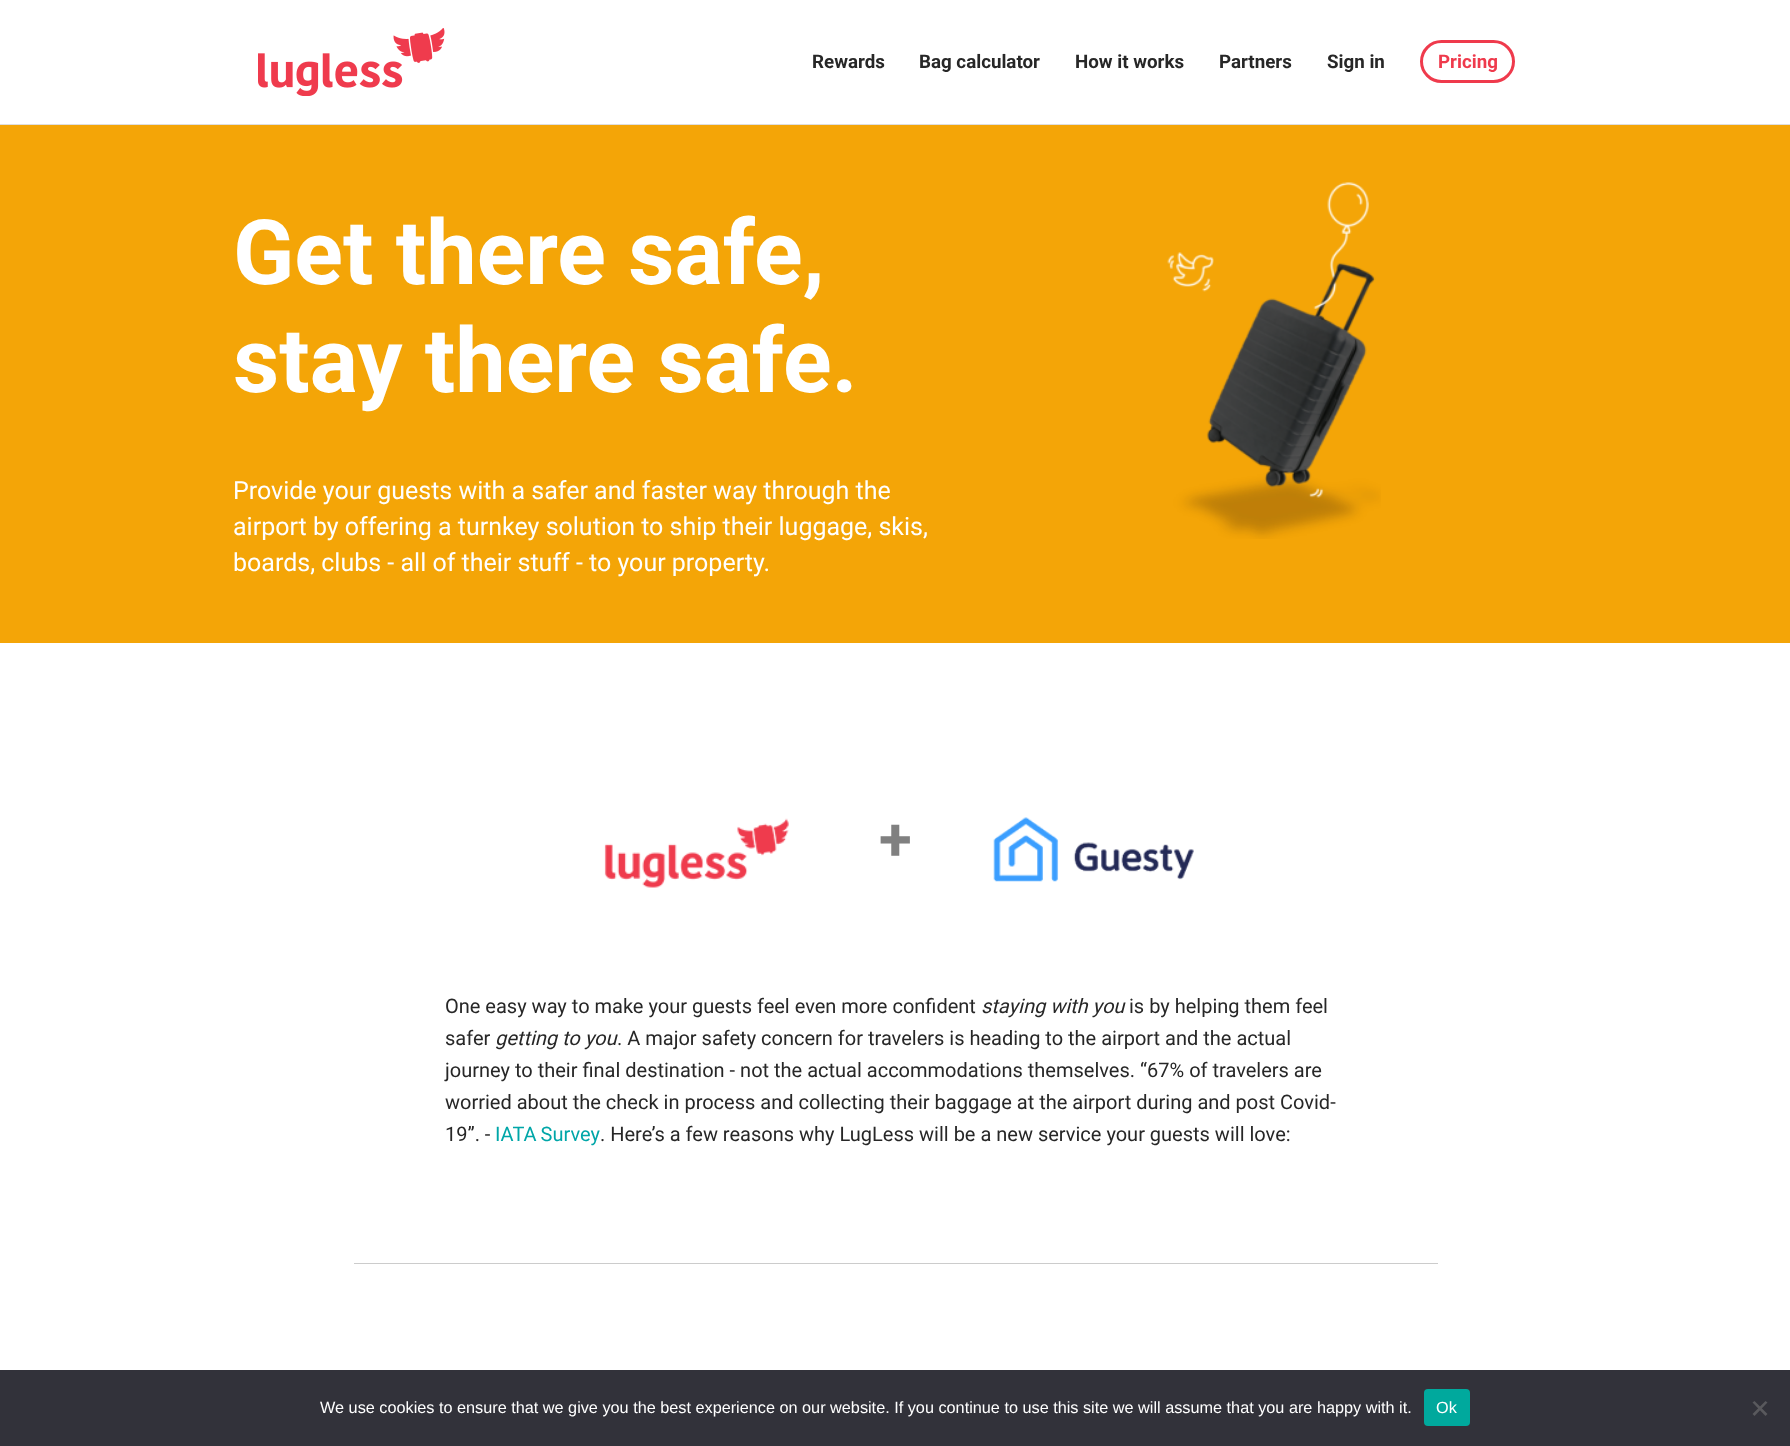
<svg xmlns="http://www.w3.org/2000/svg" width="1790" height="1446">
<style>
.a{font:bold 18.75px Roboto;fill:#272727}
.b{font:bold 18.75px Roboto;fill:#ef3a4c}
.c{font:bold 90px Roboto;fill:#fff}
.d{font:25px Roboto;fill:#fff}
.e{font:bold 60px Roboto;fill:#808080}
.f{font:20px Roboto;fill:#272727}
.g{font:italic 20px Roboto;fill:#272727}
.h{font:20px Roboto;fill:#00a6a8}
.i{font:16.25px Liberation Sans;fill:#fff}
</style>
<rect width="100%" height="100%" fill="#fff"/>
<path fill="#dedede" d="M0 124h1790v1H0z"/>
<image href="1.png" x="258" y="28" width="187" height="68"/>
<rect fill="none" stroke="#ef3a4c" stroke-width="3" x="1421.5" y="41.5" width="92" height="40" rx="20"/>
<path fill="#f4a507" d="M0 125h1790v518H0z"/>
<image href="2.png" x="1167" y="182" width="214" height="357"/>
<image href="3.png" x="604" y="818" width="185" height="70"/>
<image href="4.png" x="993" y="817" width="201" height="65"/>
<path fill="#ccc" d="M354 1263h1084v1H354z"/>
<path fill="#32323a" d="M0 1370h1790v76H0z"/>
<rect fill="#00a99d" x="1424" y="1389" width="46" height="37" rx="4"/>
<path fill="#59595d" d="M1765.5 1401l2 1.5l-13 13.5l-2-2z"/>
<path fill="#59595d" d="M1752.5 1402.5l2-1.5l13 13l-2 2z"/>
<text class="a" x="812" y="68">Rewards</text>
<text class="a" x="919" y="68">Bag calculator</text>
<text class="a" x="1075" y="68">How it works</text>
<text class="a" x="1219" y="68">Partners</text>
<text class="a" x="1327" y="68">Sign in</text>
<text class="b" x="1438" y="68">Pricing</text>
<text class="c" x="233" y="284">Get there safe,</text>
<text class="c" x="233" y="392">stay there safe.</text>
<text class="d" x="233" y="499">Provide your guests with a safer and faster way through the</text>
<text class="d" x="233" y="535">airport by offering a turnkey solution to ship their luggage, skis,</text>
<text class="d" x="233" y="571">boards, clubs - all of their stuff - to your property.</text>
<text class="e" x="879" y="860">+</text>
<text class="f" x="445" y="1013">One easy way to make your guests feel even more confident</text>
<text class="g" x="981" y="1013">staying with you</text>
<text class="f" x="1129" y="1013">is by helping them feel</text>
<text class="f" x="445" y="1045">safer</text>
<text class="g" x="495" y="1045">getting to you</text>
<text class="f" x="617" y="1045">. A major safety concern for travelers is heading to the airport and the actual</text>
<text class="f" x="445" y="1077">journey to their final destination - not the actual accommodations themselves. “67% of travelers are</text>
<text class="f" x="445" y="1109">worried about the check in process and collecting their baggage at the airport during and post Covid-</text>
<text class="f" x="445" y="1141">19”. -</text>
<text class="h" x="495" y="1141" word-spacing="-1">IATA Survey</text>
<text class="f" x="600" y="1141">. Here’s a few reasons why LugLess will be a new service your guests will love:</text>
<text class="i" x="320" y="1413">We use cookies to ensure that we give you the best experience on our website. If you continue to use this site we will assume that you are happy with it.</text>
<text class="i" x="1436" y="1413">Ok</text>
</svg>
